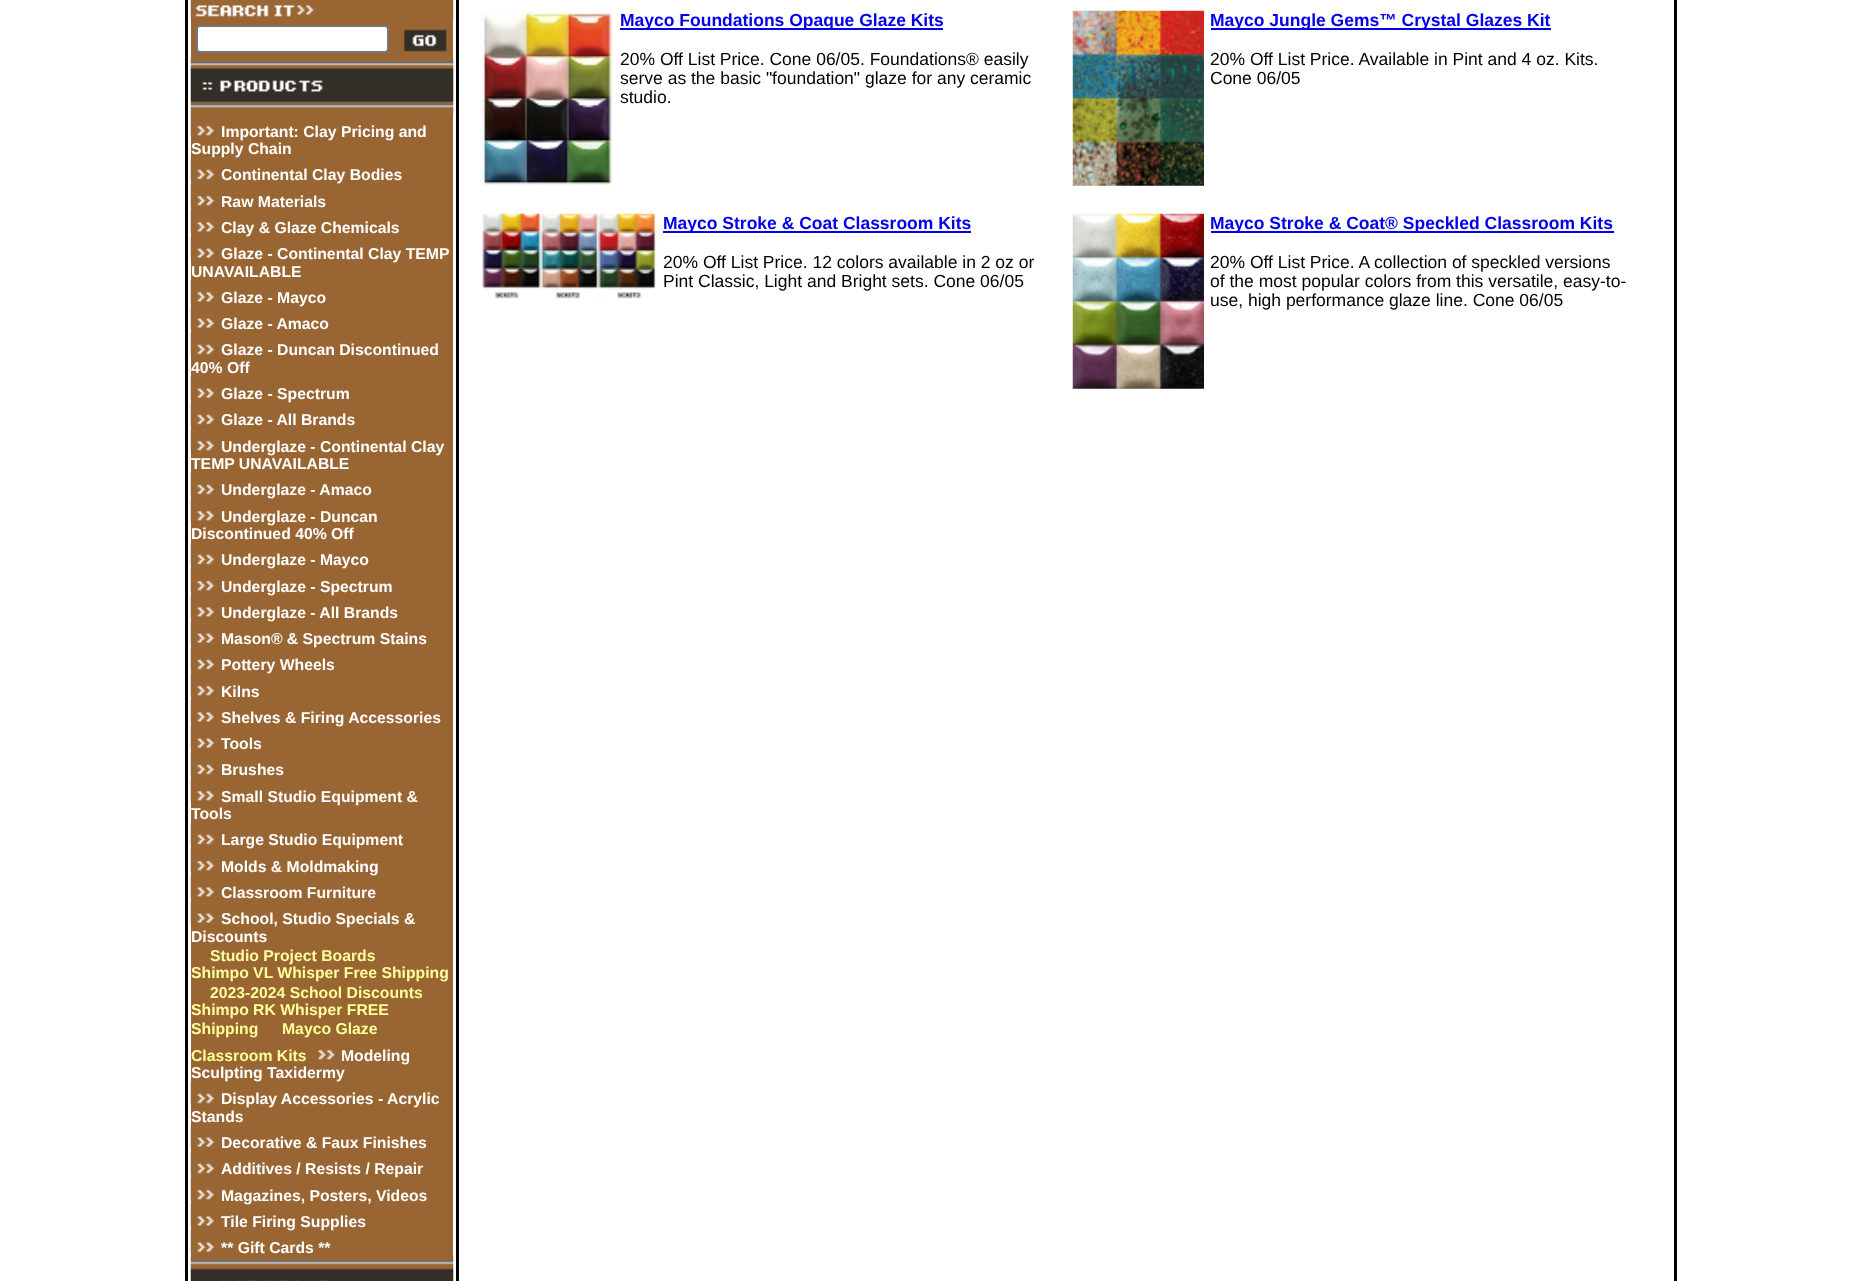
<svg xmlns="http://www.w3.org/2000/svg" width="1862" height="1281">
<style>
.a{font:bold 15.75px Liberation Sans;fill:#fff}
.b{font:bold 15.75px Liberation Sans;fill:#ff9}
.c{font:bold 17.5px Liberation Sans;fill:#00e}
.d{font:17.5px Liberation Sans;fill:#000}
</style>
<rect width="100%" height="100%" fill="#fff"/>
<path fill="#000" d="M185 0h3v1281H185z"/>
<path fill="#963" d="M191 19h262v1238H191z"/>
<image href="1.png" x="190" y="0" width="264" height="20"/>
<rect fill="#fff" stroke="#767676" stroke-width="2" x="197" y="26" width="191" height="26" rx="3"/>
<image href="2.png" x="403" y="29" width="44" height="23"/>
<image href="3.png" x="190" y="58" width="264" height="56"/>
<image href="4.png" x="190" y="114" width="24" height="23"/>
<image href="4.png" x="190" y="184" width="24" height="23"/>
<image href="6.png" x="190" y="210" width="24" height="23"/>
<image href="7.png" x="190" y="236" width="24" height="24"/>
<image href="6.png" x="190" y="280" width="24" height="23"/>
<image href="7.png" x="190" y="306" width="24" height="24"/>
<image href="8.png" x="190" y="332" width="24" height="24"/>
<image href="7.png" x="190" y="376" width="24" height="24"/>
<image href="8.png" x="190" y="402" width="24" height="24"/>
<image href="4.png" x="190" y="429" width="24" height="23"/>
<image href="8.png" x="190" y="472" width="24" height="24"/>
<image href="4.png" x="190" y="499" width="24" height="23"/>
<image href="8.png" x="190" y="542" width="24" height="24"/>
<image href="4.png" x="190" y="569" width="24" height="23"/>
<image href="6.png" x="190" y="595" width="24" height="23"/>
<image href="7.png" x="190" y="621" width="24" height="24"/>
<image href="8.png" x="190" y="647" width="24" height="24"/>
<image href="4.png" x="190" y="674" width="24" height="23"/>
<image href="6.png" x="190" y="700" width="24" height="23"/>
<image href="7.png" x="190" y="726" width="24" height="24"/>
<image href="8.png" x="190" y="752" width="24" height="24"/>
<image href="4.png" x="190" y="779" width="24" height="23"/>
<image href="8.png" x="190" y="822" width="24" height="24"/>
<image href="4.png" x="190" y="849" width="24" height="23"/>
<image href="6.png" x="190" y="875" width="24" height="23"/>
<image href="7.png" x="190" y="901" width="24" height="24"/>
<image href="9.png" x="318" y="1049" width="17" height="11"/>
<image href="7.png" x="190" y="1125" width="24" height="24"/>
<image href="8.png" x="190" y="1151" width="24" height="24"/>
<image href="4.png" x="190" y="1178" width="24" height="23"/>
<image href="6.png" x="190" y="1204" width="24" height="23"/>
<image href="7.png" x="190" y="1230" width="24" height="24"/>
<image href="10.png" x="190" y="1256" width="264" height="25"/>
<path fill="#000" d="M456 0h3v1281H456z"/>
<image href="11.png" x="481" y="11" width="132" height="175"/>
<path fill="#00e" d="M620 28h323v2H620z"/>
<image href="12.png" x="1072" y="10" width="132" height="176"/>
<path fill="#00e" d="M1211 28h340v2H1211z"/>
<image href="13.png" x="482" y="213" width="175" height="86"/>
<path fill="#00e" d="M663 231h308v2H663z"/>
<image href="14.png" x="1072" y="213" width="132" height="176"/>
<path fill="#00e" d="M1211 231h403v2H1211z"/>
<path fill="#000" d="M1674 0h3v1281H1674z"/>
<text class="a" x="221" y="137">Important: Clay Pricing and</text>
<text class="a" x="191" y="154">Supply Chain</text>
<image href="5.png" x="190" y="157" width="24" height="24"/>
<text class="a" x="221" y="180">Continental Clay Bodies</text>
<text class="a" x="221" y="207">Raw Materials</text>
<text class="a" x="221" y="233">Clay &amp; Glaze Chemicals</text>
<text class="a" x="221" y="259">Glaze - Continental Clay TEMP</text>
<text class="a" x="191" y="277">UNAVAILABLE</text>
<text class="a" x="221" y="303">Glaze - Mayco</text>
<text class="a" x="221" y="329">Glaze - Amaco</text>
<text class="a" x="221" y="355">Glaze - Duncan Discontinued</text>
<text class="a" x="191" y="373">40% Off</text>
<text class="a" x="221" y="399">Glaze - Spectrum</text>
<text class="a" x="221" y="425">Glaze - All Brands</text>
<text class="a" x="221" y="452">Underglaze - Continental Clay</text>
<text class="a" x="191" y="469">TEMP UNAVAILABLE</text>
<text class="a" x="221" y="495">Underglaze - Amaco</text>
<text class="a" x="221" y="522">Underglaze - Duncan</text>
<text class="a" x="191" y="539">Discontinued 40% Off</text>
<text class="a" x="221" y="565">Underglaze - Mayco</text>
<text class="a" x="221" y="592">Underglaze - Spectrum</text>
<text class="a" x="221" y="618">Underglaze - All Brands</text>
<text class="a" x="221" y="644">Mason® &amp; Spectrum Stains</text>
<text class="a" x="221" y="670">Pottery Wheels</text>
<text class="a" x="221" y="697">Kilns</text>
<text class="a" x="221" y="723">Shelves &amp; Firing Accessories</text>
<text class="a" x="221" y="749">Tools</text>
<text class="a" x="221" y="775">Brushes</text>
<text class="a" x="221" y="802">Small Studio Equipment &amp;</text>
<text class="a" x="191" y="819">Tools</text>
<text class="a" x="221" y="845">Large Studio Equipment</text>
<text class="a" x="221" y="872">Molds &amp; Moldmaking</text>
<text class="a" x="221" y="898">Classroom Furniture</text>
<text class="a" x="221" y="924">School, Studio Specials &amp;</text>
<text class="a" x="191" y="942">Discounts</text>
<text class="b" x="210" y="961">Studio Project Boards</text>
<text class="b" x="191" y="978">Shimpo VL Whisper Free Shipping</text>
<text class="b" x="210" y="998">2023-2024 School Discounts</text>
<text class="b" x="191" y="1015">Shimpo RK Whisper FREE</text>
<text class="b" x="191" y="1034">Shipping</text>
<text class="b" x="282" y="1034">Mayco Glaze</text>
<text class="b" x="191" y="1061">Classroom Kits</text>
<text class="a" x="341" y="1061">Modeling</text>
<text class="a" x="191" y="1078">Sculpting Taxidermy</text>
<image href="8.png" x="190" y="1081" width="24" height="24"/>
<text class="a" x="221" y="1104">Display Accessories - Acrylic</text>
<text class="a" x="191" y="1122">Stands</text>
<text class="a" x="221" y="1148">Decorative &amp; Faux Finishes</text>
<text class="a" x="221" y="1174">Additives / Resists / Repair</text>
<text class="a" x="221" y="1201">Magazines, Posters, Videos</text>
<text class="a" x="221" y="1227">Tile Firing Supplies</text>
<text class="a" x="221" y="1253">** Gift Cards **</text>
<text class="c" x="620" y="26">Mayco Foundations Opaque Glaze Kits</text>
<text class="d" x="620" y="65">20% Off List Price. Cone 06/05. Foundations® easily</text>
<text class="d" x="620" y="84">serve as the basic "foundation" glaze for any ceramic</text>
<text class="d" x="620" y="103">studio.</text>
<text class="c" x="1210" y="26">Mayco Jungle Gems™ Crystal Glazes Kit</text>
<text class="d" x="1210" y="65">20% Off List Price. Available in Pint and 4 oz. Kits.</text>
<text class="d" x="1210" y="84">Cone 06/05</text>
<text class="c" x="663" y="229">Mayco Stroke &amp; Coat Classroom Kits</text>
<text class="d" x="663" y="268">20% Off List Price. 12 colors available in 2 oz or</text>
<text class="d" x="663" y="287">Pint Classic, Light and Bright sets. Cone 06/05</text>
<text class="c" x="1210" y="229">Mayco Stroke &amp; Coat® Speckled Classroom Kits</text>
<text class="d" x="1210" y="268">20% Off List Price. A collection of speckled versions</text>
<text class="d" x="1210" y="287">of the most popular colors from this versatile, easy-to-</text>
<text class="d" x="1210" y="306">use, high performance glaze line. Cone 06/05</text>
</svg>
